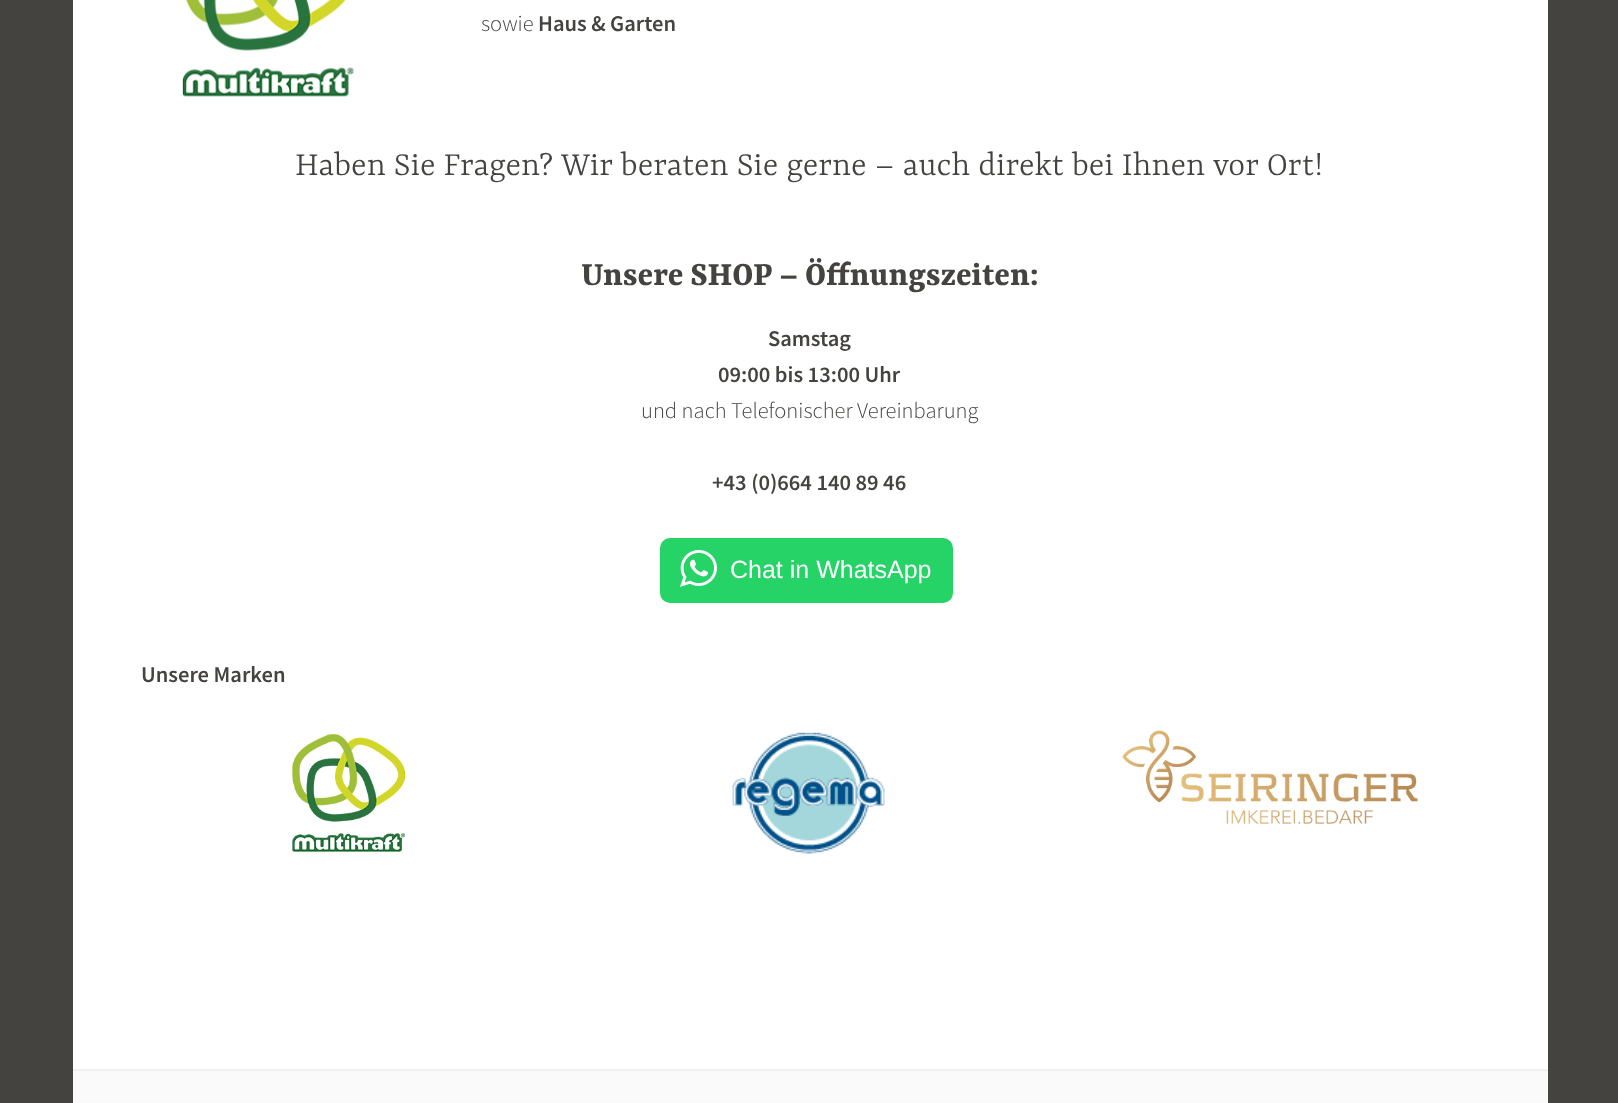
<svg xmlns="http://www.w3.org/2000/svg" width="1618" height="1103">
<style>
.a{font:300 22.5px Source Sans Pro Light;fill:#444340}
.b{font:600 22.5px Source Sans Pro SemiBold;fill:#444340}
.c{font:300 36.25px Yrsa;fill:#444340}
.d{font:bold 36.25px Yrsa;fill:#444340}
.e{font:25px Liberation Sans;fill:#fff}
</style>
<rect width="100%" height="100%" fill="#444340"/>
<path fill="#fff" d="M73 0h1475v1069H73z"/>
<image href="1.png" x="182" y="0" width="172" height="97"/>
<rect fill="#25d366" x="660" y="538" width="293" height="65" rx="10"/>
<image href="2.png" x="680" y="550" width="37" height="37"/>
<image href="3.png" x="292" y="734" width="114" height="118"/>
<image href="4.png" x="732" y="732" width="153" height="122"/>
<image href="5.png" x="1122" y="730" width="296" height="94"/>
<path fill="#f2f2f2" d="M73 1069h1475v1H73z"/>
<path fill="#fafafa" d="M73 1071h1475v32H73z"/>
<path fill="#eee" d="M73 1070h1475v1H73z"/>
<text class="a" x="481" y="31">sowie</text>
<text class="b" x="538" y="31">Haus &amp; Garten</text>
<text class="c" x="295" y="175">Haben Sie Fragen? Wir beraten Sie gerne – auch direkt bei Ihnen vor Ort!</text>
<text class="d" x="581" y="285">Unsere SHOP – Öffnungszeiten:</text>
<text class="b" x="768" y="346">Samstag</text>
<text class="b" x="718" y="382">09:00 bis 13:00 Uhr</text>
<text class="a" x="641" y="418">und nach Telefonischer Vereinbarung</text>
<text class="b" x="712" y="490">+43 (0)664 140 89 46</text>
<text class="e" x="730" y="578">Chat in WhatsApp</text>
<text class="b" x="141" y="682">Unsere Marken</text>
</svg>
